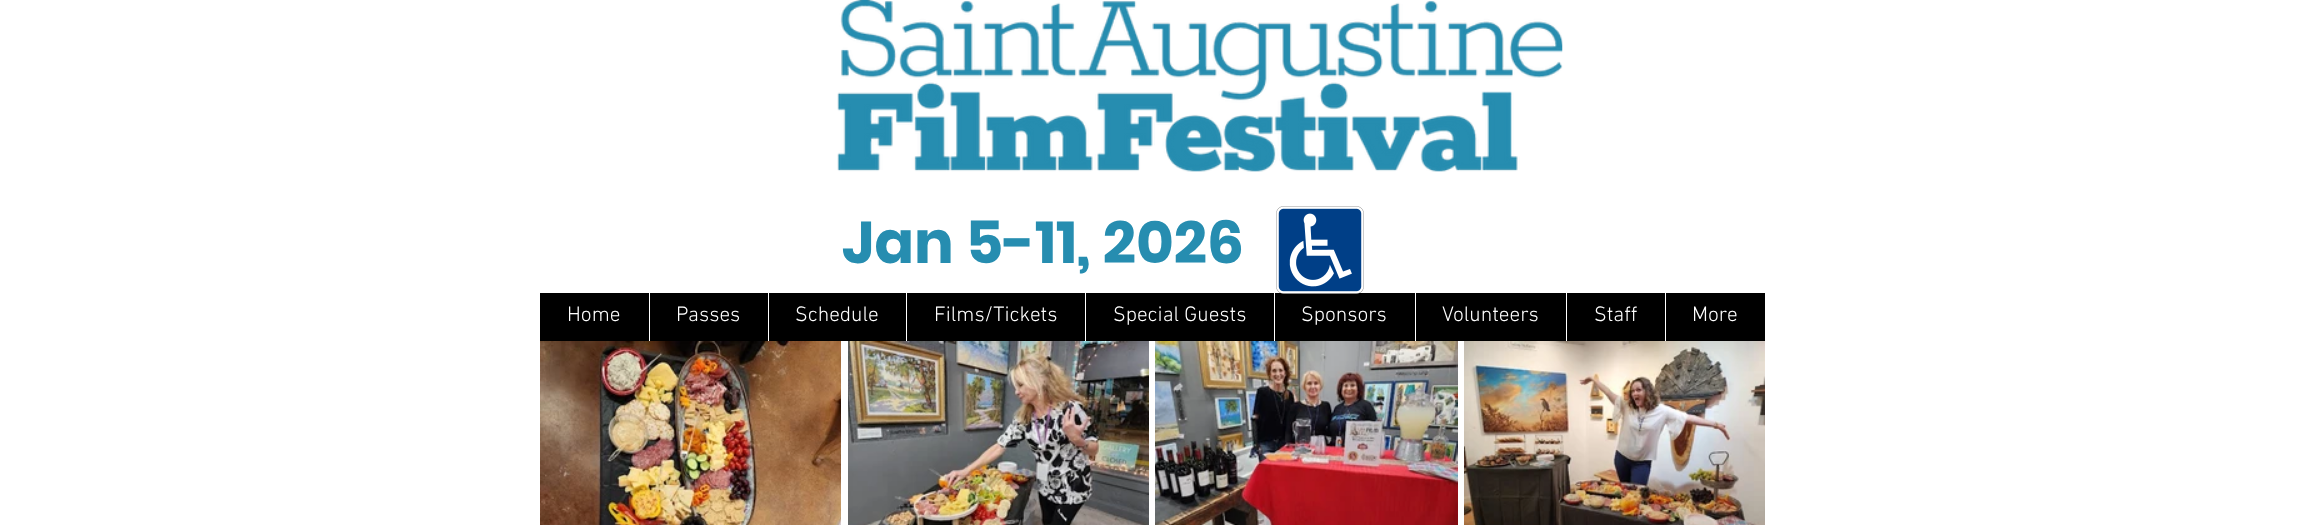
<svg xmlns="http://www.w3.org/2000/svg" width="2303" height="525">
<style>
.a{font:bold 58.75px Poppins;fill:#268db0}
.b{font:300 21.25px 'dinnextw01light';fill:#fff}
</style>
<rect width="100%" height="100%" fill="#fff"/>
<image href="1.png" x="837" y="0" width="726" height="172"/>
<path fill="#000" d="M540 293h1225v48H540z"/>
<image href="2.png" x="1276" y="206" width="88" height="88"/>
<path fill="#fff" d="M649 293h1v48H649z"/>
<path fill="#fff" d="M768 293h1v48H768z"/>
<path fill="#fff" d="M906 293h1v48H906z"/>
<path fill="#fff" d="M1085 293h1v48H1085z"/>
<path fill="#fff" d="M1274 293h1v48H1274z"/>
<path fill="#fff" d="M1415 293h1v48H1415z"/>
<path fill="#fff" d="M1566 293h1v48H1566z"/>
<path fill="#fff" d="M1665 293h1v48H1665z"/>
<image href="3.png" x="540" y="341" width="301" height="184"/>
<image href="4.png" x="848" y="341" width="301" height="184"/>
<image href="5.png" x="1155" y="341" width="303" height="184"/>
<image href="6.png" x="1464" y="341" width="301" height="184"/>
<text class="a" x="842" y="263">Jan 5-11, 2026</text>
<text class="b" x="567" y="321">Home</text>
<text class="b" x="676" y="321">Passes</text>
<text class="b" x="795" y="321">Schedule</text>
<text class="b" x="934" y="321">Films/Tickets</text>
<text class="b" x="1113" y="321">Special Guests</text>
<text class="b" x="1301" y="321">Sponsors</text>
<text class="b" x="1442" y="321">Volunteers</text>
<text class="b" x="1594" y="321">Staff</text>
<text class="b" x="1692" y="321">More</text>
</svg>
